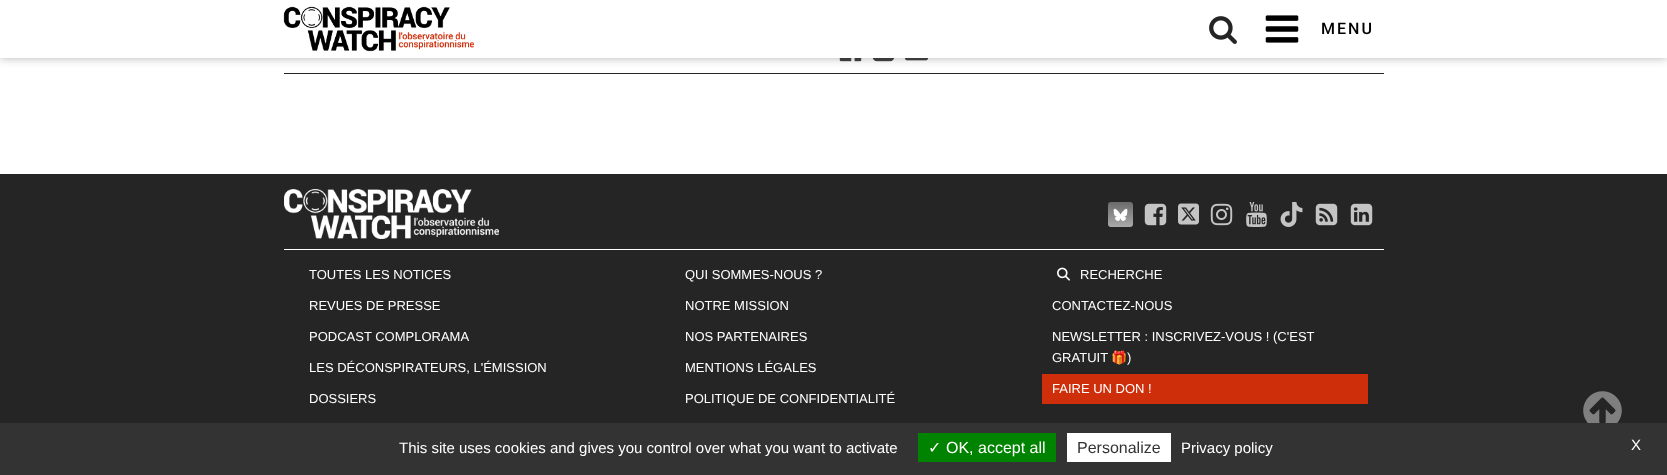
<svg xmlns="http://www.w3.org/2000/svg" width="1667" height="475">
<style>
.a{font:500 16px Roboto;letter-spacing:2px;fill:#000}
.b{font:13px Liberation Sans;fill:#fff}
.c{font:13px Noto Color Emoji;fill:#fff}
.d{font:15px Liberation Sans;fill:#fff}
.e{font:16px DejaVu Sans;fill:#fff}
.f{font:16px Liberation Sans;fill:#fff}
.g{font:16px Liberation Sans;fill:#333}
</style>
<rect width="100%" height="100%" fill="#fff"/>
<path fill="#252525" d="M284 73h1100v1H284z"/>
<image href="4.png" x="839" y="58" width="23" height="4"/>
<image href="5.png" x="872" y="58" width="23" height="4"/>
<image href="6.png" x="905" y="58" width="23" height="3"/>
<path fill="#0000004d" filter="blur(5px)" d="M0 0h1667v58H0z"/>
<path fill="#fff" d="M0 0h1667v58H0z"/>
<image href="1.png" x="283" y="6" width="191" height="46"/>
<image href="2.png" x="1209" y="16" width="28" height="28"/>
<image href="3.png" x="1265" y="15" width="34" height="28"/>
<path fill="#252525" d="M0 174h1667v249H0z"/>
<image href="7.png" x="284" y="189" width="215" height="50"/>
<image href="8.png" x="1108" y="202" width="25" height="25"/>
<image href="9.png" x="1144" y="203" width="23" height="23"/>
<image href="10.png" x="1178" y="203" width="21" height="22"/>
<image href="11.png" x="1210" y="203" width="23" height="23"/>
<image href="12.png" x="1246" y="202" width="21" height="25"/>
<image href="13.png" x="1280" y="202" width="23" height="25"/>
<image href="14.png" x="1315" y="203" width="23" height="23"/>
<image href="15.png" x="1350" y="203" width="23" height="23"/>
<path fill="#fff" d="M284 249h1100v1H284z"/>
<image href="16.png" x="1057" y="267" width="13" height="14"/>
<path fill="#ce2e0a" d="M1042 374h326v30H1042z"/>
<image href="17.png" x="1583" y="391" width="39" height="32"/>
<path fill="#333" d="M0 423h1667v52H0z"/>
<path fill="#008300" d="M918 433h138v29H918z"/>
<path fill="#fff" d="M1067 433h104v29H1067z"/>
<text class="a" x="1321" y="34">MENU</text>
<text class="b" x="309" y="279">TOUTES LES NOTICES</text>
<text class="b" x="309" y="310">REVUES DE PRESSE</text>
<text class="b" x="309" y="341">PODCAST COMPLORAMA</text>
<text class="b" x="309" y="372">LES DÉCONSPIRATEURS, L'ÉMISSION</text>
<text class="b" x="309" y="403">DOSSIERS</text>
<text class="b" x="685" y="279">QUI SOMMES-NOUS ?</text>
<text class="b" x="685" y="310">NOTRE MISSION</text>
<text class="b" x="685" y="341">NOS PARTENAIRES</text>
<text class="b" x="685" y="372">MENTIONS LÉGALES</text>
<text class="b" x="685" y="403">POLITIQUE DE CONFIDENTIALITÉ</text>
<text class="b" x="1080" y="279">RECHERCHE</text>
<text class="b" x="1052" y="310">CONTACTEZ-NOUS</text>
<text class="b" x="1052" y="341">NEWSLETTER : INSCRIVEZ-VOUS ! (C'EST</text>
<text class="b" x="1052" y="362">GRATUIT</text>
<text class="c" x="1111" y="362">🎁</text>
<text class="b" x="1127" y="362">)</text>
<text class="b" x="1052" y="393">FAIRE UN DON !</text>
<text class="d" x="399" y="453">This site uses cookies and gives you control over what you want to activate</text>
<text class="e" x="928" y="453">✓</text>
<text class="f" x="946" y="453">OK, accept all</text>
<text class="g" x="1077" y="453">Personalize</text>
<text class="d" x="1181" y="453">Privacy policy</text>
<text class="d" x="1631" y="450">X</text>
</svg>
